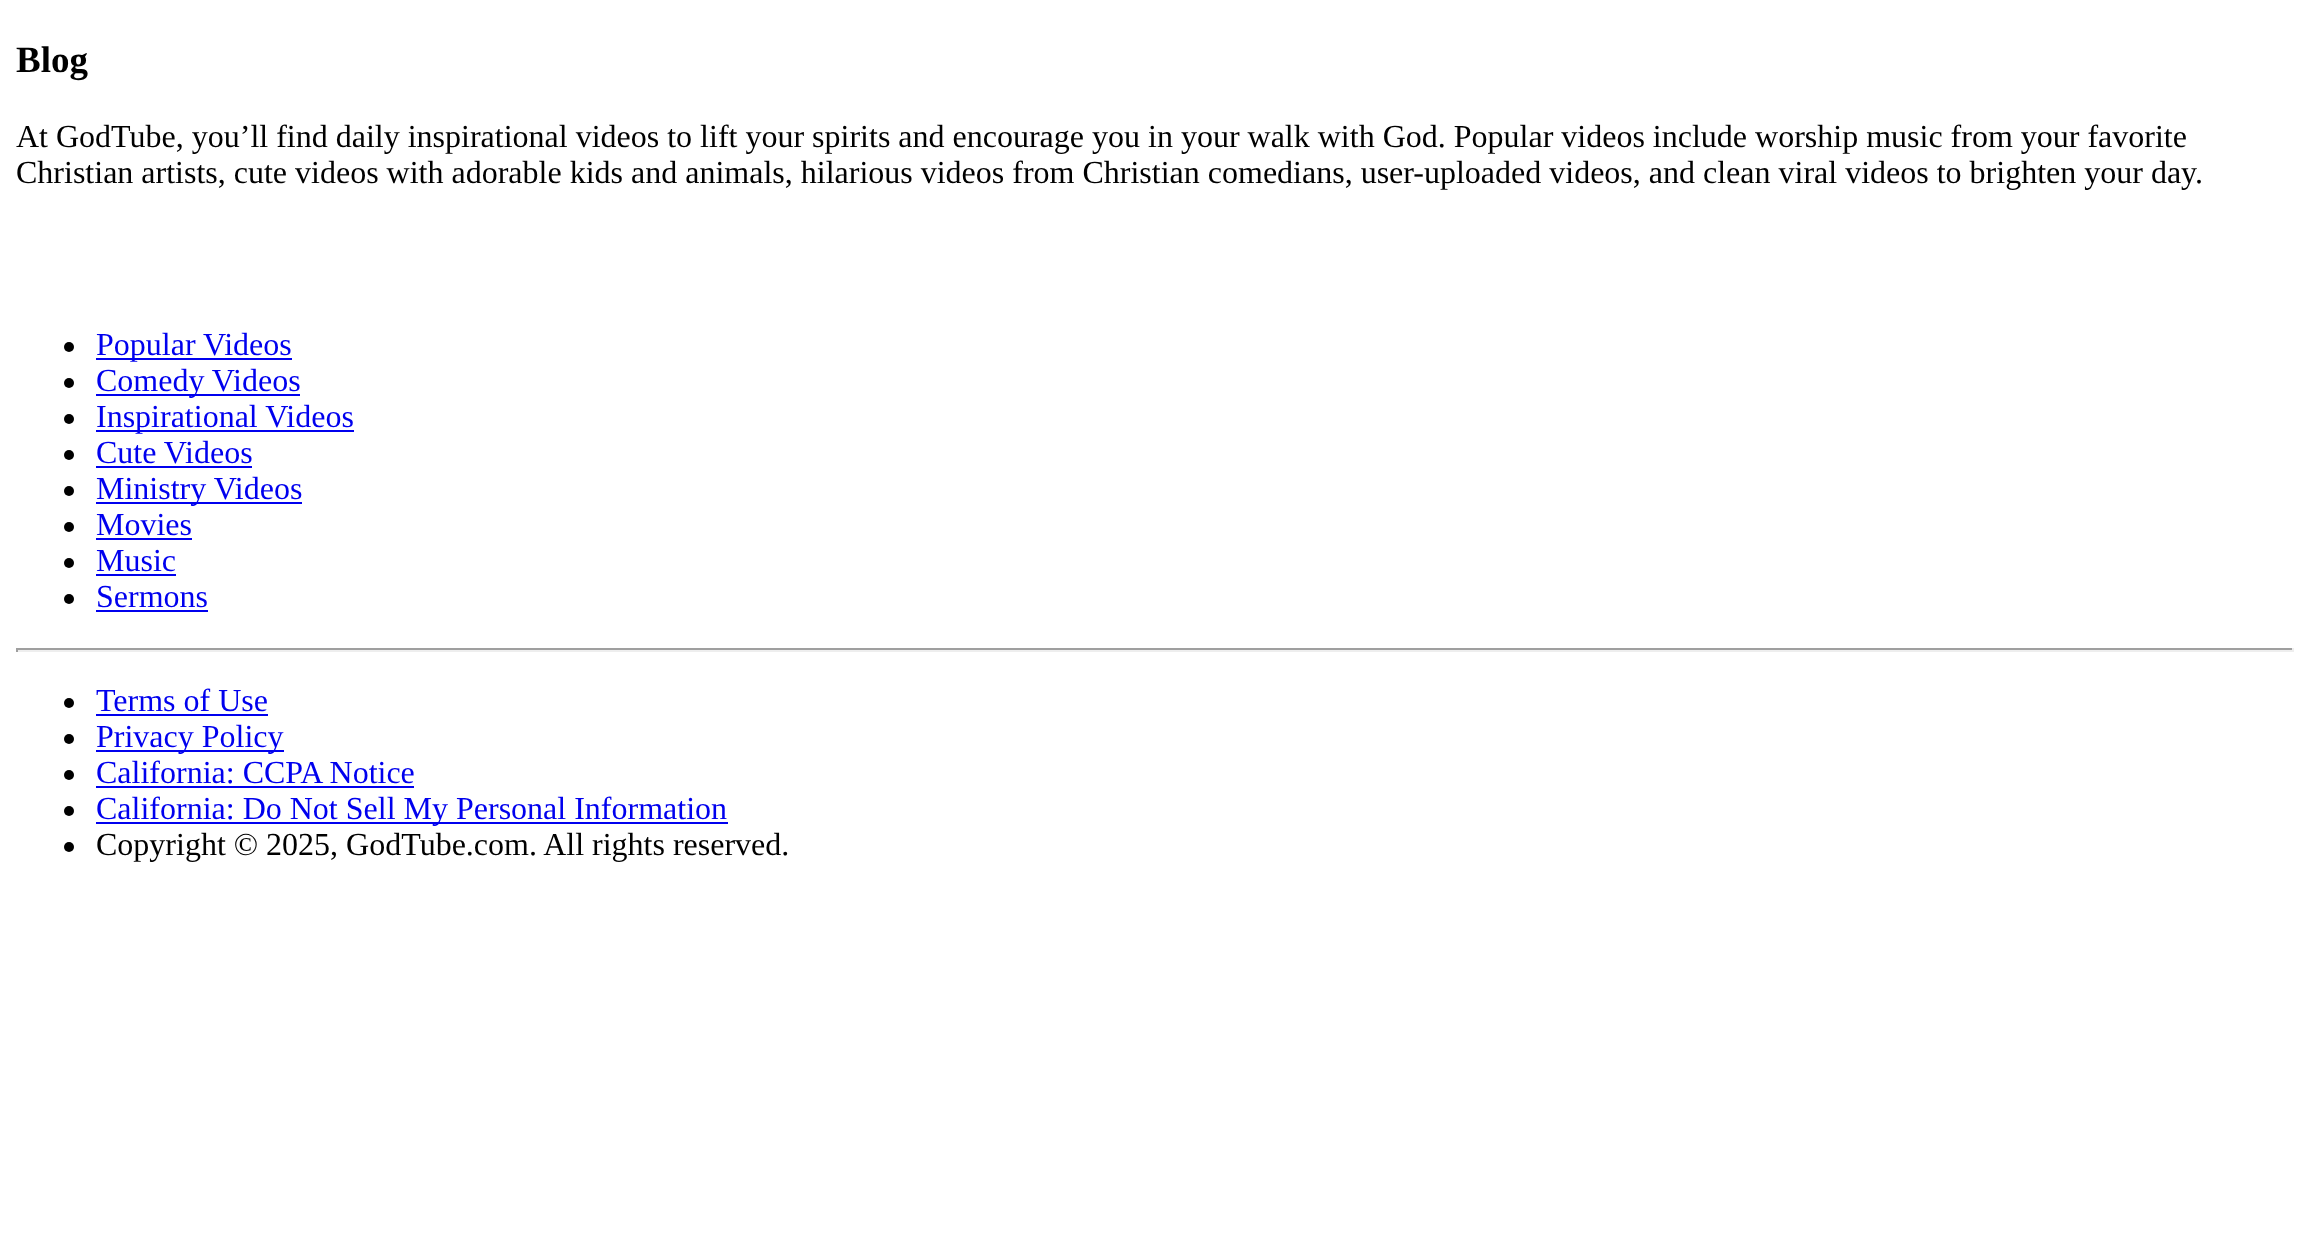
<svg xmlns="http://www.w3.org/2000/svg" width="2309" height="1233">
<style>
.a{font:bold 37px Liberation Serif;fill:#000}
.b{font:32px Liberation Serif;fill:#000}
.c{font:32px Liberation Serif;fill:#00e}
</style>
<rect width="100%" height="100%" fill="#fff"/>
<circle fill="#000" cx="69" cy="347" r="5"/>
<path fill="#00e" d="M96 358h196v2H96z"/>
<circle fill="#000" cx="69" cy="383" r="5"/>
<path fill="#00e" d="M96 394h204v2H96z"/>
<circle fill="#000" cx="69" cy="419" r="5"/>
<path fill="#00e" d="M96 430h258v2H96z"/>
<circle fill="#000" cx="69" cy="455" r="5"/>
<path fill="#00e" d="M96 466h156v2H96z"/>
<circle fill="#000" cx="69" cy="491" r="5"/>
<path fill="#00e" d="M96 502h206v2H96z"/>
<circle fill="#000" cx="69" cy="527" r="5"/>
<path fill="#00e" d="M96 538h96v2H96z"/>
<circle fill="#000" cx="69" cy="563" r="5"/>
<path fill="#00e" d="M96 574h80v2H96z"/>
<circle fill="#000" cx="69" cy="599" r="5"/>
<path fill="#00e" d="M96 610h112v2H96z"/>
<path fill="#9f9f9f" d="M16 648h2278v2H16z"/>
<path fill="#eee" d="M2292 648h2v4H2292z"/>
<path fill="#eee" d="M16 650h2278v2H16z"/>
<path fill="#9f9f9f" d="M16 648h2v4H16z"/>
<circle fill="#000" cx="69" cy="703" r="5"/>
<path fill="#00e" d="M96 714h172v2H96z"/>
<circle fill="#000" cx="69" cy="739" r="5"/>
<path fill="#00e" d="M96 750h188v2H96z"/>
<circle fill="#000" cx="69" cy="775" r="5"/>
<path fill="#00e" d="M96 786h318v2H96z"/>
<circle fill="#000" cx="69" cy="811" r="5"/>
<path fill="#00e" d="M96 822h632v2H96z"/>
<circle fill="#000" cx="69" cy="847" r="5"/>
<text class="a" x="16" y="72">Blog</text>
<text class="b" x="16" y="147">At GodTube, you’ll find daily inspirational videos to lift your spirits and encourage you in your walk with God. Popular videos include worship music from your favorite</text>
<text class="b" x="16" y="183">Christian artists, cute videos with adorable kids and animals, hilarious videos from Christian comedians, user-uploaded videos, and clean viral videos to brighten your day.</text>
<text class="c" x="96" y="355">Popular Videos</text>
<text class="c" x="96" y="391">Comedy Videos</text>
<text class="c" x="96" y="427">Inspirational Videos</text>
<text class="c" x="96" y="463">Cute Videos</text>
<text class="c" x="96" y="499">Ministry Videos</text>
<text class="c" x="96" y="535">Movies</text>
<text class="c" x="96" y="571">Music</text>
<text class="c" x="96" y="607">Sermons</text>
<text class="c" x="96" y="711">Terms of Use</text>
<text class="c" x="96" y="747">Privacy Policy</text>
<text class="c" x="96" y="783">California: CCPA Notice</text>
<text class="c" x="96" y="819">California: Do Not Sell My Personal Information</text>
<text class="b" x="96" y="855">Copyright © 2025, GodTube.com. All rights reserved.</text>
</svg>
